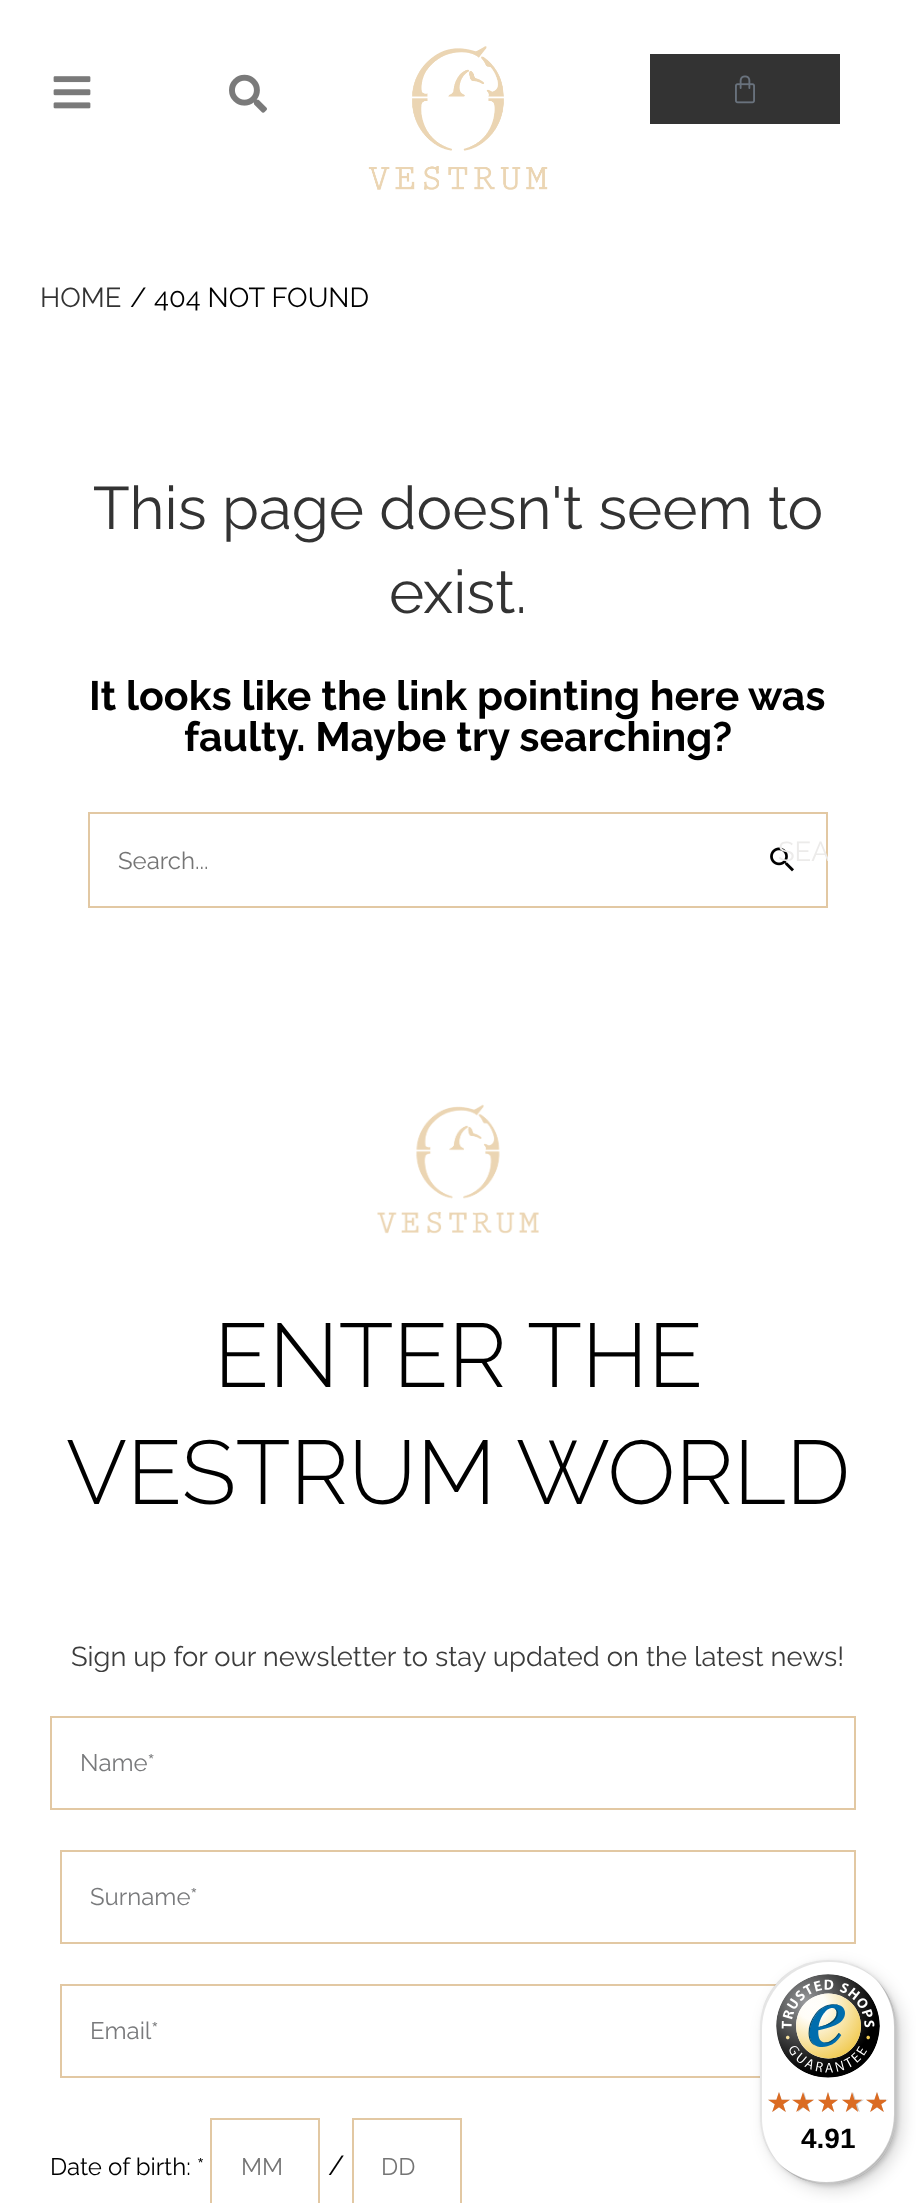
<svg xmlns="http://www.w3.org/2000/svg" width="916" height="2203">
<style>
.a{font:27.35px Raleway;fill:#333}
.b{font:27.35px Raleway;fill:#000}
.c{font:60px Raleway;fill:#333}
.d{font:bold 41px Raleway;fill:#000}
.e{font:27.35px Raleway;fill:#ecebea}
.f{font:24px Raleway;fill:#757575}
.g{font:300 90px Raleway;fill:#000}
.h{font:27.35px Raleway;fill:#3c3c3c}
.i{font:24px Raleway;fill:#797a7c}
.j{font:24px Raleway;fill:#000}
.k{font:bold 28px Liberation Sans;fill:#000}
</style>
<defs>
<clipPath id="clip1"><rect x="738" y="812" width="90" height="80" rx="4"/></clipPath>
</defs>
<rect width="100%" height="100%" fill="#fff"/>
<image href="1.png" x="53" y="76" width="38" height="33"/>
<image href="2.png" x="229" y="74" width="38" height="39"/>
<image href="3.png" x="368" y="46" width="180" height="144"/>
<path fill="#333" d="M650 54h190v70H650z"/>
<image href="4.png" x="735" y="75" width="20" height="29"/>
<path fill="none" stroke="#e2c8a3" stroke-width="2" d="M89 813h738v94H89z"/>
<image href="5.png" x="770" y="847" width="24" height="25"/>
<image href="6.png" x="377" y="1104" width="162" height="130"/>
<path fill="none" stroke="#e2c8a3" stroke-width="2" d="M51 1717h804v92H51z"/>
<path fill="none" stroke="#e2c8a3" stroke-width="2" d="M61 1851h794v92H61z"/>
<path fill="none" stroke="#e2c8a3" stroke-width="2" d="M61 1985h804v92H61z"/>
<path fill="none" stroke="#e2c8a3" stroke-width="2" d="M211 2119h108v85H211z"/>
<path fill="none" stroke="#e2c8a3" stroke-width="2" d="M353 2119h108v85H353z"/>
<rect fill="#00000026" filter="blur(8px)" x="766" y="1966" width="136" height="224" rx="68"/>
<rect fill="#00000026" filter="blur(2px)" x="762" y="1962" width="136" height="224" rx="68"/>
<rect fill="#fff" x="760" y="1960" width="136" height="224" rx="68"/>
<path fill="#0000001a" d="M830 1962c16 0 31 6 43 15c-12-11-28-17-45-17c-38 0-68 30-68 68v88c0 17 6 33 17 45c-9-12-15-27-15-43v-88c0-38 30-68 68-68z"/>
<path fill="#00000033" d="M783 2167c12 11 28 17 45 17c38 0 68-30 68-68v-88c0-17-6-33-17-45c9 12 15 27 15 43v88c0 38-30 68-68 68c-16 0-31-6-43-15z"/>
<path fill="#32323233" d="M778 2163c13 13 30 21 50 21c38 0 68-30 68-68v-88c0-20-8-37-21-50c12 13 20 30 20 49v88c0 37-31 68-68 68c-19 0-36-8-49-20z"/>
<path fill="#ffffff4d" d="M787 2170c12 9 26 14 41 14c38 0 68-30 68-68v-88c0-15-5-29-14-41c8 11 13 25 13 40v88c0 38-30 68-68 68c-15 0-29-5-40-13z"/>
<image href="7.png" x="776" y="1974" width="104" height="104"/>
<image href="8.png" x="768" y="2092" width="22" height="20"/>
<image href="9.png" x="794" y="2092" width="20" height="20"/>
<image href="10.png" x="818" y="2092" width="20" height="20"/>
<image href="11.png" x="842" y="2092" width="22" height="20"/>
<image href="11.png" x="866" y="2092" width="22" height="20"/>
<image href="12.png" x="768" y="2092" width="22" height="20"/>
<image href="13.png" x="792" y="2092" width="22" height="20"/>
<image href="14.png" x="818" y="2092" width="20" height="20"/>
<image href="15.png" x="842" y="2092" width="20" height="20"/>
<image href="16.png" x="866" y="2092" width="20" height="20"/>
<text class="a" x="40" y="307">HOME</text>
<text class="b" x="130" y="307">/</text>
<text class="b" x="154" y="307">404 NOT FOUND</text>
<text class="c" x="93" y="529">This page doesn't seem to</text>
<text class="c" x="389" y="613">exist.</text>
<text class="d" x="89" y="710">It looks like the link pointing here was</text>
<text class="d" x="184" y="751">faulty. Maybe try searching?</text>
<g clip-path="url(#clip1)">
<text class="e" x="778" y="861">SEA</text>
</g>
<text class="f" x="118" y="869">Search...</text>
<text class="g" x="214" y="1387">ENTER THE</text>
<text class="g" x="66" y="1504">VESTRUM WORLD</text>
<text class="h" x="71" y="1666">Sign up for our newsletter to stay updated on the latest news!</text>
<text class="i" x="80" y="1771">Name*</text>
<text class="i" x="90" y="1905">Surname*</text>
<text class="i" x="90" y="2039">Email*</text>
<text class="j" x="50" y="2175">Date of birth: *</text>
<text class="f" x="241" y="2175">MM</text>
<text class="b" x="328" y="2175">/</text>
<text class="f" x="381" y="2175">DD</text>
<text class="k" x="801" y="2148">4.91</text>
</svg>
